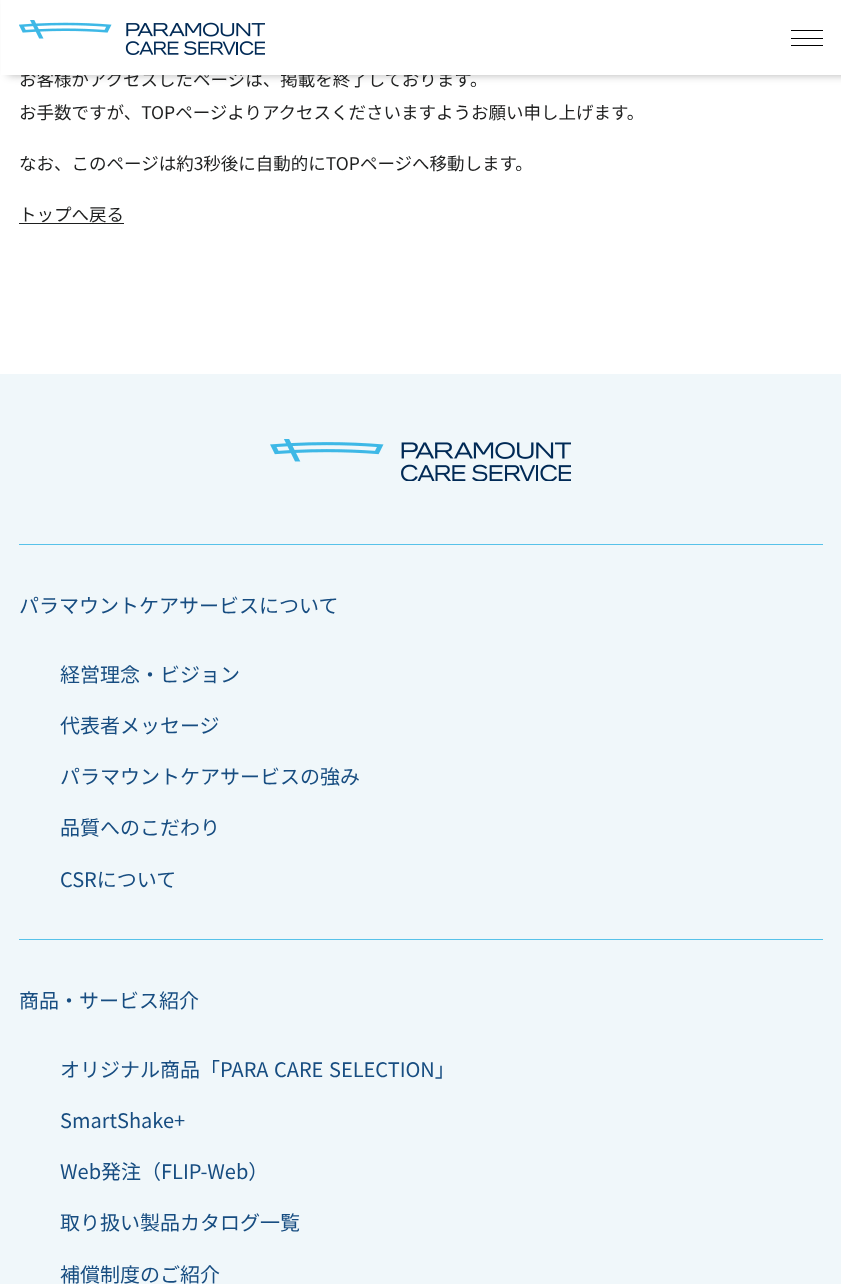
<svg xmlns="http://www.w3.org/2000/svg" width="841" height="1284">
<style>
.a{font:17.5px Noto Sans JP;fill:#1e1f1f}
.b{font:20px Noto Sans JP;fill:#174d81}
</style>
<rect width="100%" height="100%" fill="#fff"/>
<path fill="#0000004d" filter="blur(4px)" d="M8 0h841v75H8z"/>
<path fill="#1e1f1f" d="M19 223h105v1H19z"/>
<path fill="#f0f7fa" d="M0 374h841v910H0z"/>
<image href="2.png" x="270" y="439" width="301" height="42"/>
<path fill="#57c2e9" d="M19 544h804v1H19z"/>
<path fill="#57c2e9" d="M19 939h804v1H19z"/>
<text class="a" x="19" y="86">お客様がアクセスしたページは、掲載を終了しております。</text>
<path fill="#fff" d="M1 0h840v75H1z"/>
<path fill="#000" d="M791 45h32v1H791z"/>
<path fill="#000" d="M791 38h32v1H791z"/>
<path fill="#000" d="M791 30h32v1H791z"/>
<image href="1.png" x="19" y="20" width="246" height="35"/>
<text class="a" x="19" y="119">お手数ですが、TOPページよりアクセスくださいますようお願い申し上げます。</text>
<text class="a" x="19" y="170">なお、このページは約3秒後に自動的にTOPページへ移動します。</text>
<text class="a" x="19" y="221">トップへ戻る</text>
<text class="b" x="19" y="613">パラマウントケアサービスについて</text>
<text class="b" x="60" y="682">経営理念・ビジョン</text>
<text class="b" x="60" y="733">代表者メッセージ</text>
<text class="b" x="60" y="784">パラマウントケアサービスの強み</text>
<text class="b" x="60" y="835">品質へのこだわり</text>
<text class="b" x="60" y="887">CSRについて</text>
<text class="b" x="19" y="1008">商品・サービス紹介</text>
<text class="b" x="60" y="1077">オリジナル商品「PARA</text>
<text class="b" x="274" y="1077">CARE</text>
<text class="b" x="329" y="1077">SELECTION」</text>
<text class="b" x="60" y="1128">SmartShake+</text>
<text class="b" x="60" y="1179">Web発注（FLIP-Web）</text>
<text class="b" x="60" y="1230">取り扱い製品カタログ一覧</text>
<text class="b" x="60" y="1282">補償制度のご紹介</text>
</svg>
